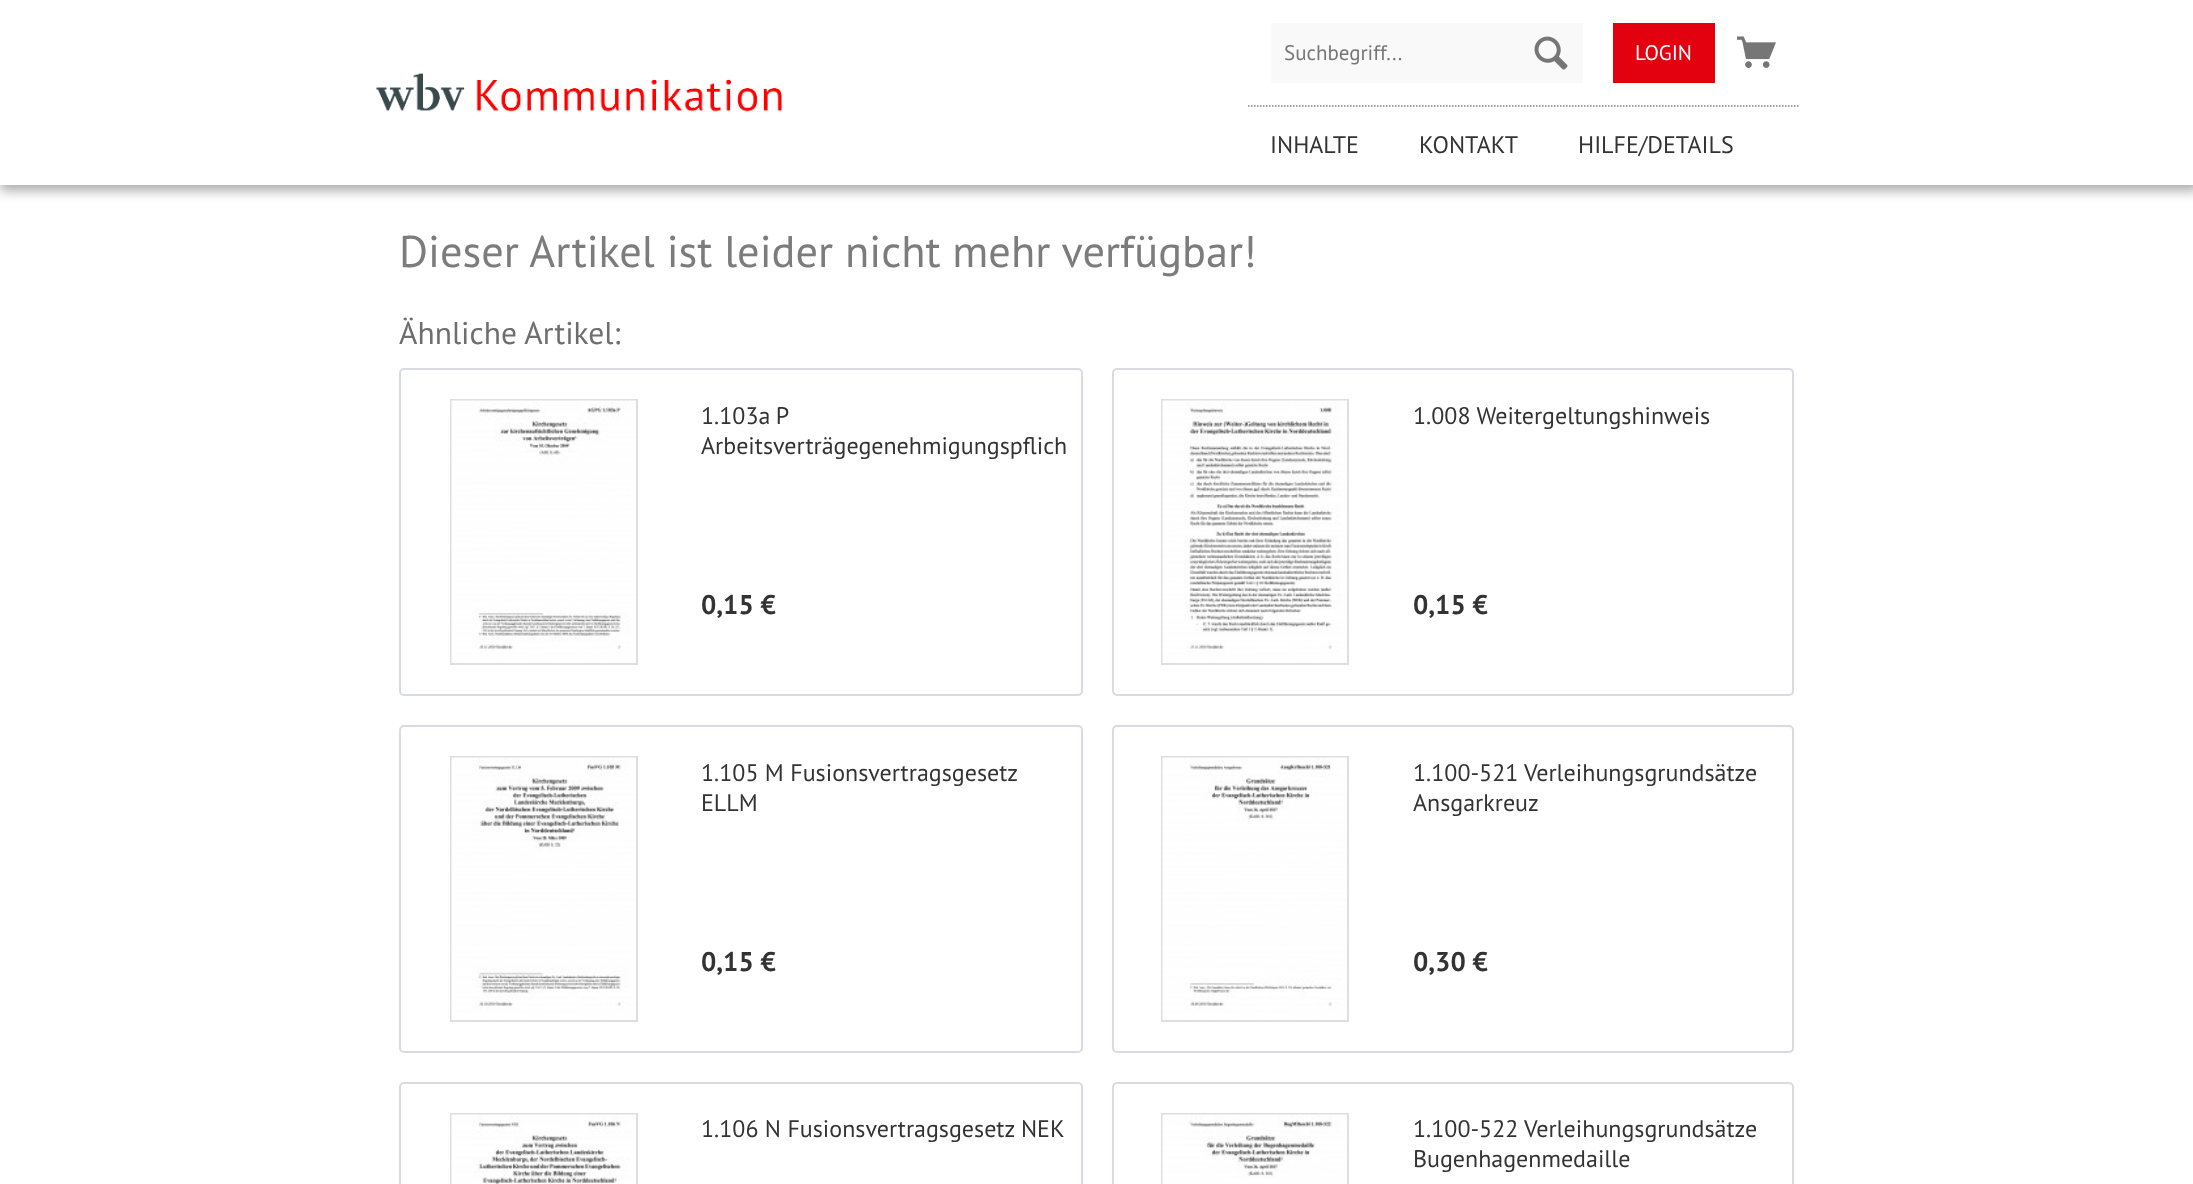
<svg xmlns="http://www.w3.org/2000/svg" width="2193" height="1184">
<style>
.a{font:21px PT Sans;fill:#767676}
.b{font:21px PT Sans;fill:#fff}
.c{font:24px PT Sans;fill:#333}
.d{font:44.4px PT Sans;fill:#7c7c7c}
.e{font:31.5px PT Sans;fill:#6e6e6e}
.f{font:bold 27px PT Sans;fill:#333}
</style>
<defs>
<clipPath id="clip1"><path d="M701 399h366v60H701z"/></clipPath>
</defs>
<rect width="100%" height="100%" fill="#fff"/>
<path fill="#00000052" filter="blur(6px)" d="M0 0h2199v191H0z"/>
<path fill="#fff" d="M0 0h2193v185H0z"/>
<image href="1.png" x="376" y="73" width="406" height="39"/>
<path fill="none" stroke="#808080" stroke-width="1.5" stroke-dasharray="1.5 1.5" d="M1248 106h550.5"/>
<path fill="#f9f9f9" d="M1271 23h312v60H1271z"/>
<image href="2.png" x="1534" y="36" width="34" height="34"/>
<path fill="#e3000f" d="M1613 23h102v60H1613z"/>
<image href="3.png" x="1737" y="36" width="39" height="32"/>
<rect fill="none" stroke="#dadae5" stroke-width="2" x="400" y="369" width="682" height="326" rx="4"/>
<path fill="none" stroke="#dedede" stroke-width="2" d="M451 400h186v264H451z"/>
<image href="4.png" x="451" y="400" width="185" height="263"/>
<rect fill="none" stroke="#dadae5" stroke-width="2" x="1113" y="369" width="680" height="326" rx="4"/>
<path fill="none" stroke="#dedede" stroke-width="2" d="M1162 400h186v264H1162z"/>
<image href="5.png" x="1162" y="400" width="185" height="263"/>
<rect fill="none" stroke="#dadae5" stroke-width="2" x="400" y="726" width="682" height="326" rx="4"/>
<path fill="none" stroke="#dedede" stroke-width="2" d="M451 757h186v264H451z"/>
<image href="6.png" x="451" y="757" width="185" height="263"/>
<rect fill="none" stroke="#dadae5" stroke-width="2" x="1113" y="726" width="680" height="326" rx="4"/>
<path fill="none" stroke="#dedede" stroke-width="2" d="M1162 757h186v264H1162z"/>
<image href="7.png" x="1162" y="757" width="185" height="263"/>
<rect fill="none" stroke="#dadae5" stroke-width="2" x="400" y="1083" width="682" height="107" rx="4"/>
<path fill="none" stroke="#dedede" stroke-width="2" d="M451 1114h186v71H451z"/>
<image href="8.png" x="451" y="1114" width="185" height="70"/>
<rect fill="none" stroke="#dadae5" stroke-width="2" x="1113" y="1083" width="680" height="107" rx="4"/>
<path fill="none" stroke="#dedede" stroke-width="2" d="M1162 1114h186v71H1162z"/>
<image href="9.png" x="1162" y="1114" width="185" height="70"/>
<text class="a" x="1284" y="60">Suchbegriff...</text>
<text class="b" x="1635" y="60">LOGIN</text>
<text class="c" x="1270" y="153">INHALTE</text>
<text class="c" x="1419" y="153">KONTAKT</text>
<text class="c" x="1578" y="153">HILFE/DETAILS</text>
<text class="d" x="399" y="267">Dieser Artikel ist leider nicht mehr verfügbar!</text>
<text class="e" x="399" y="344">Ähnliche Artikel:</text>
<text class="c" x="701" y="424" word-spacing="-1">1.103a P</text>
<g clip-path="url(#clip1)">
<text class="c" x="701" y="454">Arbeitsverträgegenehmigungspflich</text>
</g>
<text class="f" x="701" y="614">0,15 €</text>
<text class="c" x="1413" y="424">1.008 Weitergeltungshinweis</text>
<text class="f" x="1413" y="614">0,15 €</text>
<text class="c" x="701" y="781">1.105 M Fusionsvertragsgesetz</text>
<text class="c" x="701" y="811">ELLM</text>
<text class="f" x="701" y="971">0,15 €</text>
<text class="c" x="1413" y="781">1.100-521 Verleihungsgrundsätze</text>
<text class="c" x="1413" y="811">Ansgarkreuz</text>
<text class="f" x="1413" y="971">0,30 €</text>
<text class="c" x="701" y="1137">1.106 N Fusionsvertragsgesetz NEK</text>
<text class="c" x="1413" y="1137">1.100-522 Verleihungsgrundsätze</text>
<text class="c" x="1413" y="1167">Bugenhagenmedaille</text>
</svg>
